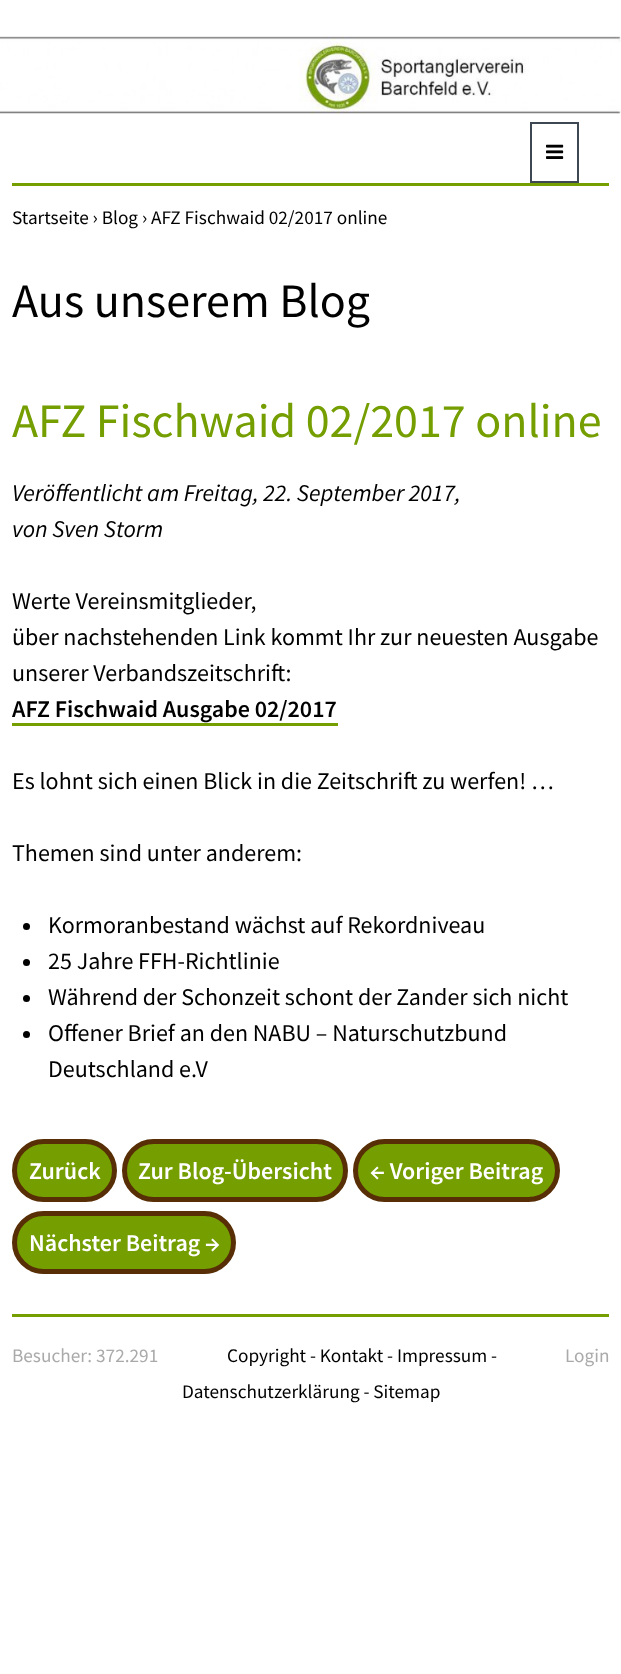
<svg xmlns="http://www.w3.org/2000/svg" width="621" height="1674">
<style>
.a{font:19.25px Source Sans Pro;fill:#000}
.b{font:48px Source Sans Pro;fill:#000}
.c{font:48px Source Sans Pro;fill:#759e00}
.d{font:italic 24px Source Sans Pro;fill:#000}
.e{font:24px Source Sans Pro;fill:#000}
.f{font:600 24px Source Sans Pro;fill:#000}
.g{font:600 24px Source Sans Pro;fill:#fff}
.h{font:19.25px Source Sans Pro;fill:#aaa}
</style>
<rect width="100%" height="100%" fill="#fff"/>
<path fill="#759e00" d="M12 183h597v3H12z"/>
<image href="1.png" x="0" y="36" width="621" height="78"/>
<path fill="none" stroke="#3e4853" stroke-width="2" d="M531 123h47v59H531z"/>
<image href="2.png" x="546" y="144" width="18" height="15"/>
<path fill="#759e00" d="M12 1314h597v3H12z"/>
<path fill="#759e00" d="M12 723h326v3H12z"/>
<circle fill="#000" cx="26.5" cy="926.5" r="3.5"/>
<circle fill="#000" cx="26.5" cy="962.5" r="3.5"/>
<circle fill="#000" cx="26.5" cy="998.5" r="3.5"/>
<circle fill="#000" cx="26.5" cy="1034.5" r="3.5"/>
<rect fill="#759e00" stroke="#572e05" stroke-width="5" x="14.5" y="1141.5" width="100" height="58" rx="29"/>
<rect fill="#759e00" stroke="#572e05" stroke-width="5" x="124.5" y="1141.5" width="221" height="58" rx="29"/>
<rect fill="#759e00" stroke="#572e05" stroke-width="5" x="355.5" y="1141.5" width="202" height="58" rx="29"/>
<rect fill="#759e00" stroke="#572e05" stroke-width="5" x="14.5" y="1213.5" width="219" height="58" rx="29"/>
<text class="a" x="12" y="224">Startseite › Blog › AFZ Fischwaid 02/2017 online</text>
<text class="b" x="12" y="317">Aus unserem Blog</text>
<text class="c" x="12" y="437">AFZ Fischwaid 02/2017 online</text>
<text class="d" x="12" y="501">Veröffentlicht am Freitag, 22. September 2017,</text>
<text class="d" x="12" y="537">von Sven Storm</text>
<text class="e" x="12" y="609">Werte Vereinsmitglieder,</text>
<text class="e" x="12" y="645">über nachstehenden Link kommt Ihr zur neuesten Ausgabe</text>
<text class="e" x="12" y="681">unserer Verbandszeitschrift:</text>
<text class="f" x="12" y="717">AFZ Fischwaid Ausgabe 02/2017</text>
<text class="e" x="12" y="789">Es lohnt sich einen Blick in die Zeitschrift zu werfen! …</text>
<text class="e" x="12" y="861">Themen sind unter anderem:</text>
<text class="e" x="48" y="933">Kormoranbestand wächst auf Rekordniveau</text>
<text class="e" x="48" y="969">25 Jahre FFH-Richtlinie</text>
<text class="e" x="48" y="1005">Während der Schonzeit schont der Zander sich nicht</text>
<text class="e" x="48" y="1041">Offener Brief an den NABU – Naturschutzbund</text>
<text class="e" x="48" y="1077">Deutschland e.V</text>
<text class="g" x="29" y="1179">Zurück</text>
<text class="g" x="138" y="1179">Zur Blog-Übersicht</text>
<text class="g" x="370" y="1179">← Voriger Beitrag</text>
<text class="g" x="29" y="1251">Nächster Beitrag →</text>
<text class="h" x="12" y="1362">Besucher: 372.291</text>
<text class="a" x="227" y="1362">Copyright - Kontakt - Impressum -</text>
<text class="a" x="182" y="1398">Datenschutzerklärung - Sitemap</text>
<text class="h" x="565" y="1362">Login</text>
</svg>
